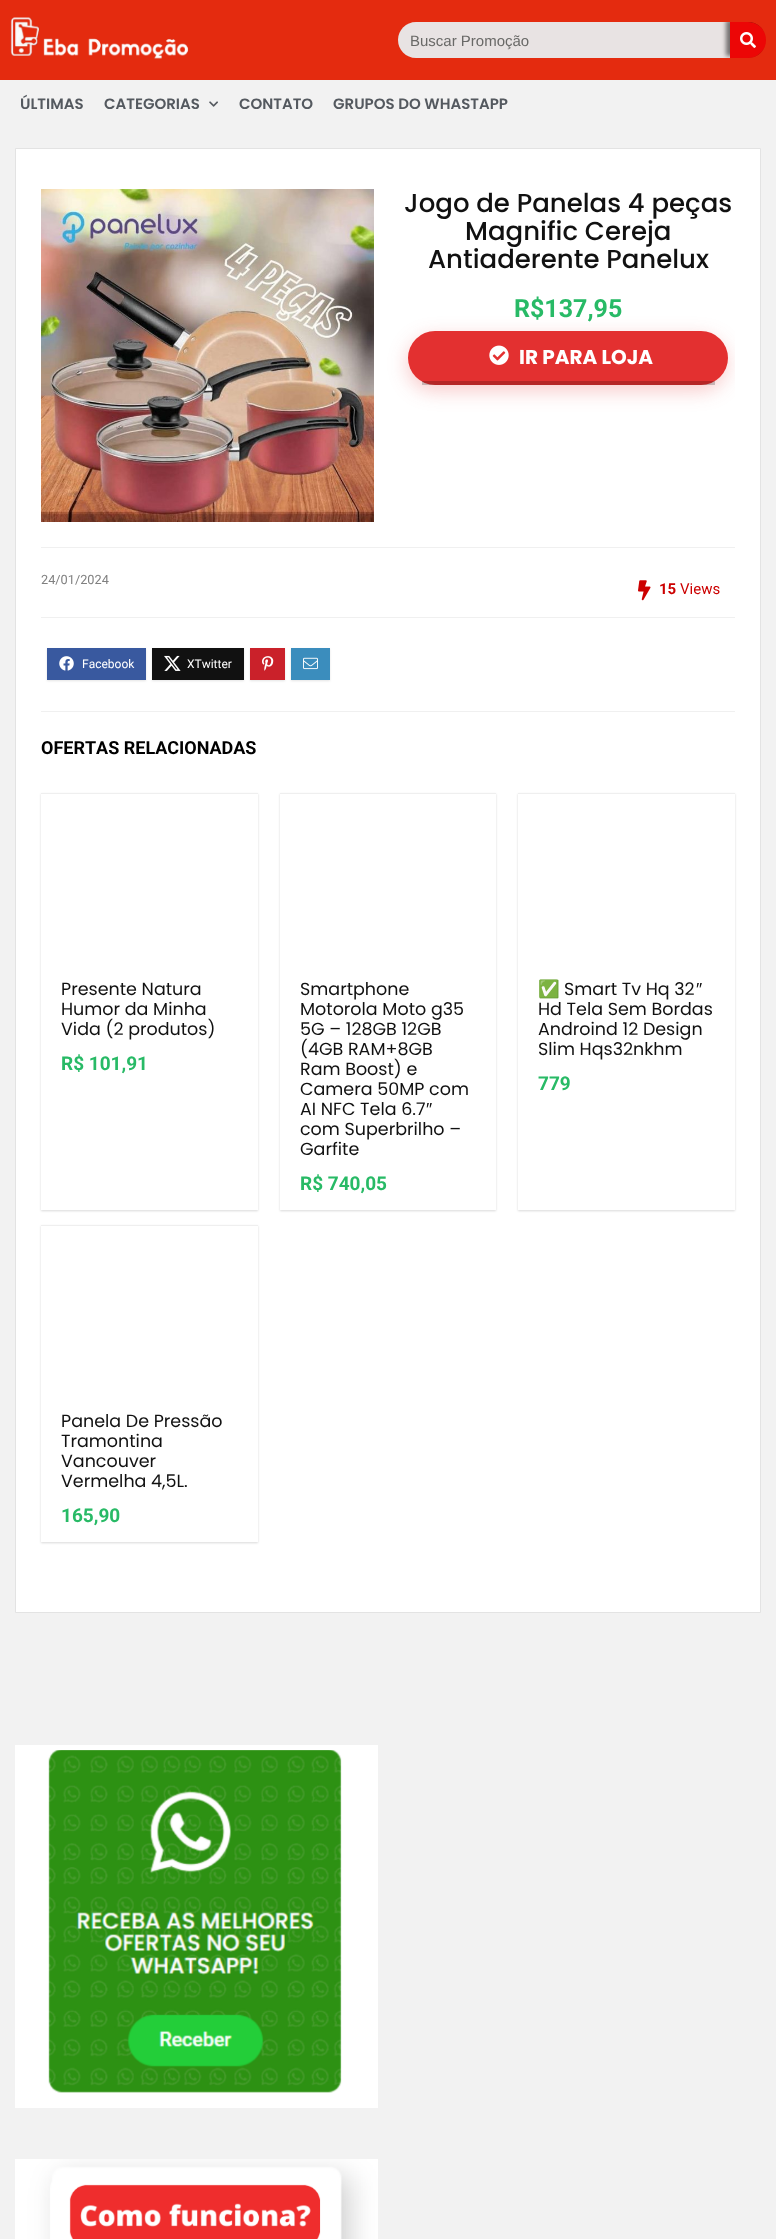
<svg xmlns="http://www.w3.org/2000/svg" width="776" height="2239">
<style>*{font-kerning:none!important;font-variant-ligatures:none!important}</style>
<style>
.a{font:15px Liberation Sans;fill:#696967}
.b{font:600 15px Poppins;fill:#54595f}
.c{font:500 26px Poppins;fill:#111}
.d{font:bold 25px Roboto;fill:#28ba66}
.e{font:bold 20px Poppins;fill:#fff}
.f{font:12.75px Roboto;fill:#808080}
.g{font:bold 15px Roboto;fill:#c00}
.h{font:15px Roboto;fill:#c00}
.i{font:12px Roboto;fill:#fff}
.j{font:bold 18px Roboto;fill:#000}
.k{font:17.5px Poppins;fill:#111}
.l{font:bold 19px Roboto;fill:#28ba66}
.m{font:17.5px Liberation Sans;fill:#111}
.n{font:17.5px Noto Color Emoji;fill:#111}
</style>
<defs>
<clipPath id="clip1"><rect x="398" y="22" width="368" height="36" rx="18"/></clipPath>
<clipPath id="clip2"><path d="M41 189h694v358H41z"/></clipPath>
<clipPath id="clip3"><path d="M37 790h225v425h-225zm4 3h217v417h-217z" clip-rule="evenodd"/></clipPath>
<clipPath id="clip4"><path d="M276 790h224v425h-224zm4 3h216v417h-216z" clip-rule="evenodd"/></clipPath>
<clipPath id="clip5"><path d="M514 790h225v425h-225zm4 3h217v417h-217z" clip-rule="evenodd"/></clipPath>
<clipPath id="clip6"><path d="M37 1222h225v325h-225zm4 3h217v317h-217z" clip-rule="evenodd"/></clipPath>
</defs>
<rect width="100%" height="100%" fill="#f2f2f2"/>
<path fill="#e42b0f" d="M0 0h776v80H0z"/>
<image href="1.png" x="10" y="17" width="179" height="42"/>
<path fill="#e8e3e3" d="M416 22h314v36h-314c-10 0-18-8-18-18c0-10 8-18 18-18z"/>
<g clip-path="url(#clip1)">
<path fill="#00000080" filter="blur(2px)" d="M726 20h36v36H726z"/>
</g>
<path fill="#ec0606" d="M730 22h18c10 0 18 8 18 18c0 10-8 18-18 18h-18z"/>
<image href="2.png" x="740" y="32" width="16" height="16"/>
<image href="3.png" x="209" y="101" width="9" height="6"/>
<path fill="#fff" stroke="#e3e3e3" d="M15.5 148.5h745v1464H15.5z"/>
<path fill="#f0f0f0" d="M41 547h694v1H41z"/>
<image href="4.png" x="41" y="189" width="333" height="333"/>
<g clip-path="url(#clip2)">
<rect fill="#e3303040" filter="blur(9.5px)" x="407" y="337" width="320" height="54" rx="27"/>
</g>
<rect fill="#e33030" x="408" y="331" width="320" height="54" rx="27"/>
<path fill="#00000033" d="M422 381h293v4H422z"/>
<image href="5.png" x="489" y="345" width="20" height="20"/>
<path fill="#f0f0f0" d="M41 617h694v1H41z"/>
<image href="6.png" x="638" y="580" width="13" height="21"/>
<path fill="#e4e4e4" filter="blur(1px)" d="M47 649h99v32H47z"/>
<path fill="#39599f" d="M47 648h99v32H47z"/>
<image href="7.png" x="59" y="656" width="15" height="15"/>
<path fill="#e4e4e4" filter="blur(1px)" d="M152 649h92v32H152z"/>
<path fill="#111" d="M152 648h92v32H152z"/>
<image href="8.png" x="164" y="655" width="17" height="16"/>
<path fill="#e4e4e4" filter="blur(1px)" d="M250 649h35v32H250z"/>
<path fill="#ca212a" d="M250 648h35v32H250z"/>
<image href="9.png" x="262" y="656" width="12" height="15"/>
<path fill="#e4e4e4" filter="blur(1px)" d="M291 649h39v32H291z"/>
<path fill="#3b8dbd" d="M291 648h39v32H291z"/>
<image href="10.png" x="303" y="657" width="15" height="13"/>
<path fill="#f0f0f0" d="M41 711h694v1H41z"/>
<g clip-path="url(#clip3)">
<path fill="#00000026" filter="blur(1px)" d="M41 794h217v417H41z"/>
</g>
<path fill="#efefef" d="M41 793h217v1H41z"/>
<g clip-path="url(#clip4)">
<path fill="#00000026" filter="blur(1px)" d="M280 794h216v417H280z"/>
</g>
<path fill="#efefef" d="M280 793h216v1H280z"/>
<g clip-path="url(#clip5)">
<path fill="#00000026" filter="blur(1px)" d="M518 794h217v417H518z"/>
</g>
<path fill="#efefef" d="M518 793h217v1H518z"/>
<g clip-path="url(#clip6)">
<path fill="#00000026" filter="blur(1px)" d="M41 1226h217v317H41z"/>
</g>
<path fill="#efefef" d="M41 1225h217v1H41z"/>
<image href="11.png" x="15" y="1745" width="363" height="363"/>
<image href="12.png" x="15" y="2159" width="363" height="80"/>
<text class="a" x="410" y="46">Buscar Promoção</text>
<text class="b" x="20" y="109">ÚLTIMAS</text>
<text class="b" x="104" y="109">CATEGORIAS</text>
<text class="b" x="239" y="109">CONTATO</text>
<text class="b" x="333" y="109">GRUPOS DO WHASTAPP</text>
<text class="c" x="404" y="212">Jogo de Panelas 4 peças</text>
<text class="c" x="465" y="240">Magnific Cereja</text>
<text class="c" x="428" y="268">Antiaderente Panelux</text>
<text class="d" x="514" y="317">R$137,95</text>
<text class="e" x="519" y="364">IR PARA LOJA</text>
<text class="f" x="41" y="584">24/01/2024</text>
<text class="g" x="659" y="594">15</text>
<text class="h" x="680" y="594">Views</text>
<text class="i" x="82" y="668">Facebook</text>
<text class="i" x="187" y="668">XTwitter</text>
<text class="j" x="41" y="754">OFERTAS RELACIONADAS</text>
<text class="k" x="61" y="995">Presente Natura</text>
<text class="k" x="61" y="1015">Humor da Minha</text>
<text class="k" x="61" y="1035">Vida (2 produtos)</text>
<text class="l" x="61" y="1070">R$ 101,91</text>
<text class="k" x="300" y="995">Smartphone</text>
<text class="k" x="300" y="1015">Motorola Moto g35</text>
<text class="k" x="300" y="1035">5G – 128GB 12GB</text>
<text class="k" x="300" y="1055">(4GB RAM+8GB</text>
<text class="k" x="300" y="1075">Ram Boost) e</text>
<text class="k" x="300" y="1095">Camera 50MP com</text>
<text class="k" x="300" y="1115">AI NFC Tela 6.7</text>
<text class="m" x="426" y="1115">″</text>
<text class="k" x="300" y="1135">com Superbrilho –</text>
<text class="k" x="300" y="1155">Garfite</text>
<text class="l" x="300" y="1190">R$ 740,05</text>
<text class="n" x="538" y="995">✅</text>
<text class="k" x="564" y="995">Smart Tv Hq 32</text>
<text class="m" x="696" y="995">″</text>
<text class="k" x="538" y="1015">Hd Tela Sem Bordas</text>
<text class="k" x="538" y="1035">Androind 12 Design</text>
<text class="k" x="538" y="1055">Slim Hqs32nkhm</text>
<text class="l" x="538" y="1090">779</text>
<text class="k" x="61" y="1427">Panela De Pressão</text>
<text class="k" x="61" y="1447">Tramontina</text>
<text class="k" x="61" y="1467">Vancouver</text>
<text class="k" x="61" y="1487">Vermelha 4,5L.</text>
<text class="l" x="61" y="1522">165,90</text>
</svg>
